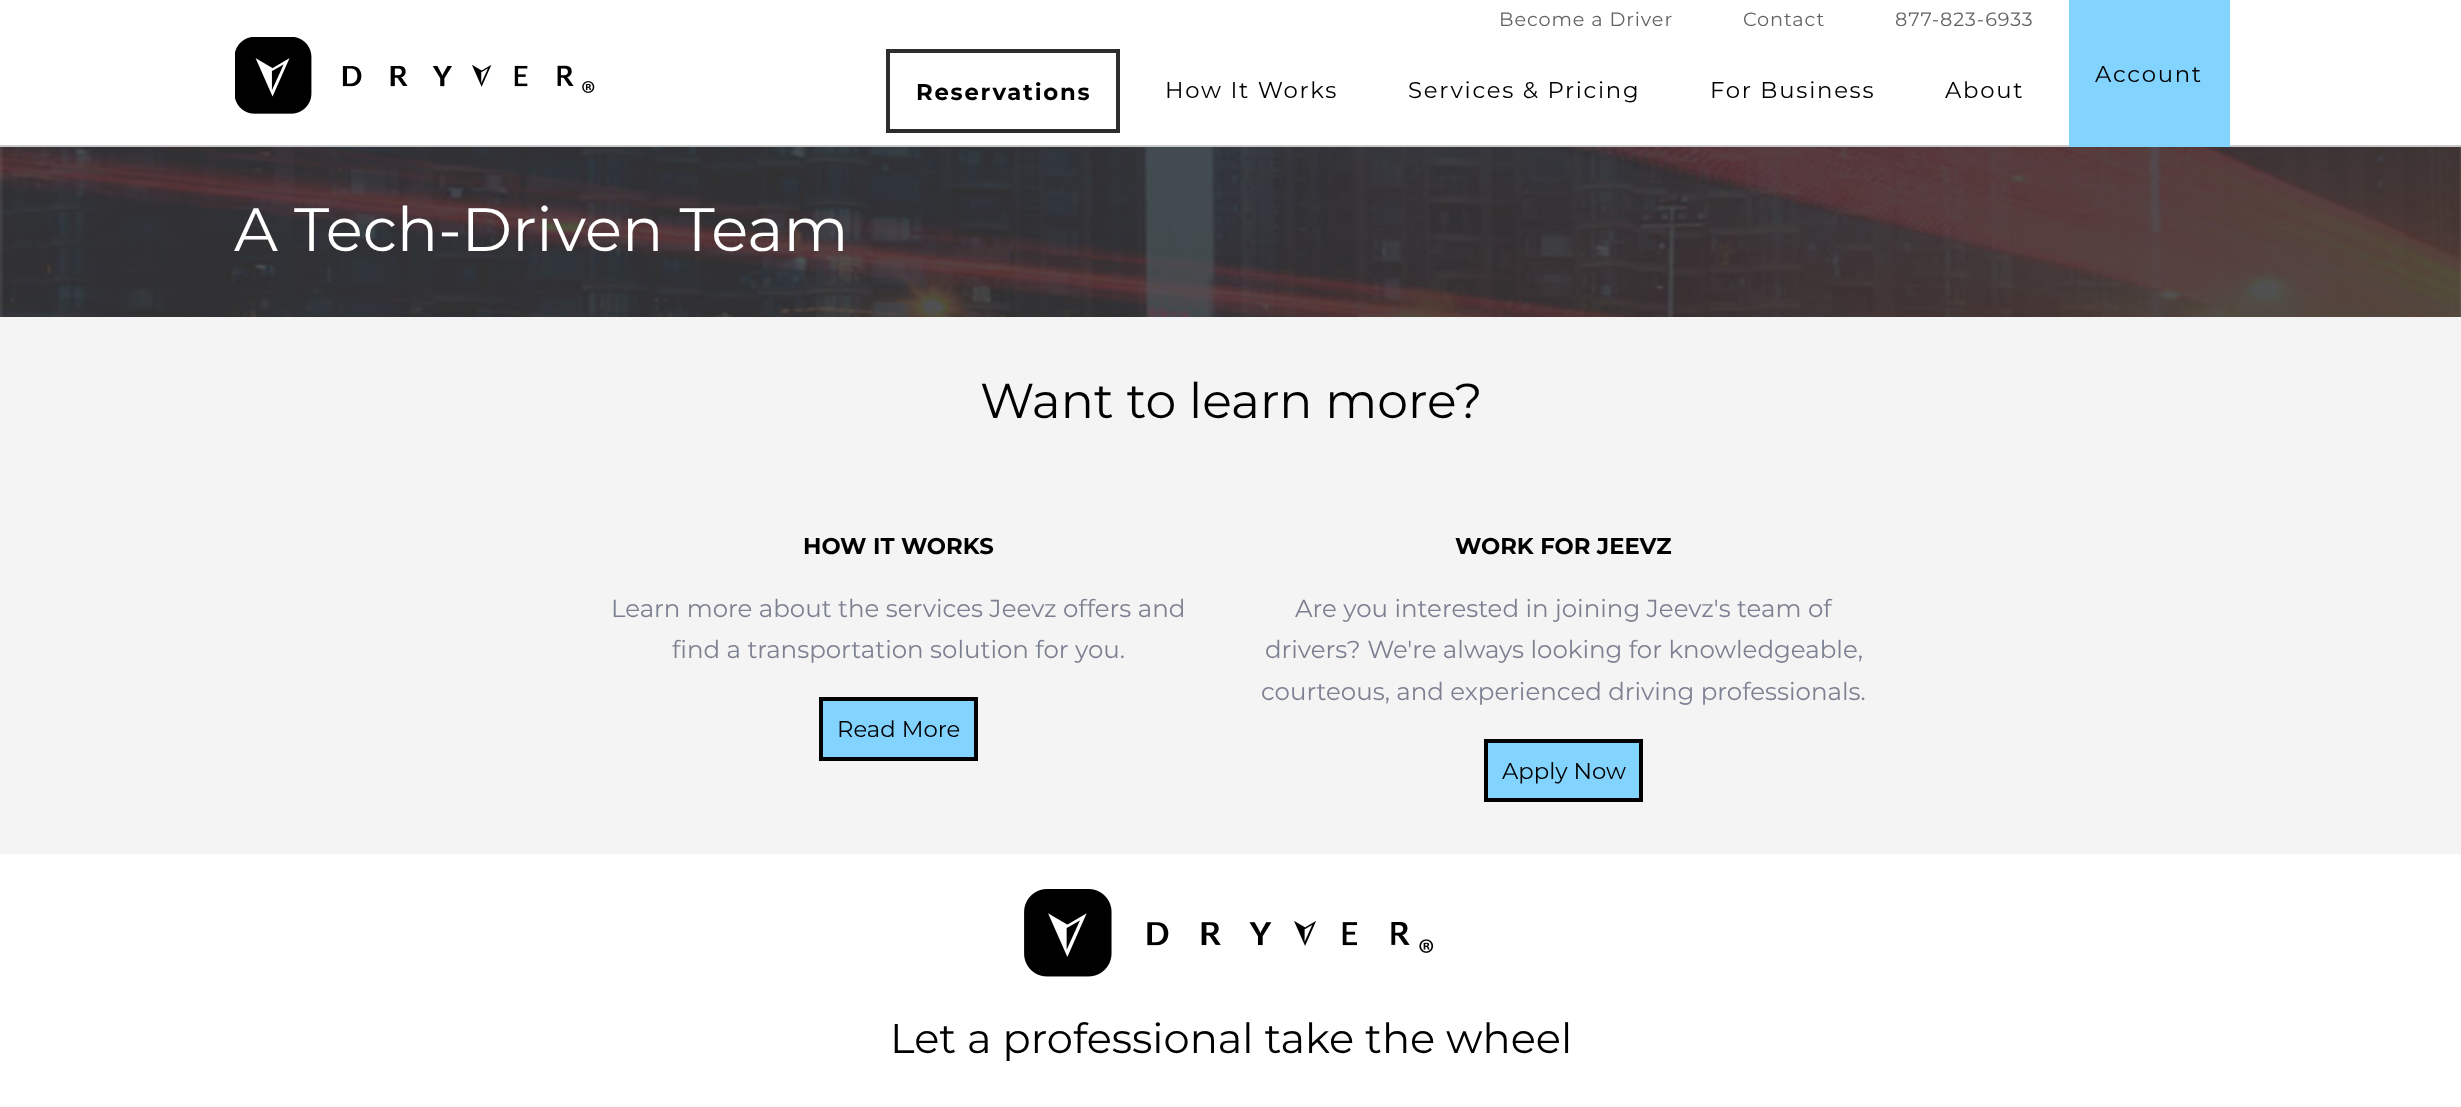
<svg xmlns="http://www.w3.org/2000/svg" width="2461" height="1107">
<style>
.a{font:19.25px Montserrat;letter-spacing:0.9px;fill:#636363}
.b{font:bold 22.75px Montserrat;letter-spacing:1.75px;fill:#000}
.c{font:22.75px Montserrat;letter-spacing:1.75px;fill:#000}
.d{font:61.25px Montserrat;fill:#fff}
.e{font:49px Montserrat;fill:#000}
.f{font:bold 22.75px Montserrat;fill:#000}
.g{font:24.5px Montserrat;fill:#7d8091}
.h{font:22.75px Montserrat;fill:#000}
.i{font:41.6px Montserrat;fill:#000}
</style>
<rect width="100%" height="100%" fill="#f4f4f4"/>
<path fill="#fff" d="M0 0h2461v145H0z"/>
<path fill="#cacaca" d="M0 145h2461v2H0z"/>
<image href="1.png" x="235" y="37" width="360" height="77"/>
<path fill="none" stroke="#2d2d2d" stroke-width="4" d="M888 51h230v80H888z"/>
<path fill="#83d3ff" d="M2069 0h161v147H2069z"/>
<image href="2.png" x="0" y="147" width="2461" height="170"/>
<path fill="#83d3ff" stroke="#000" stroke-width="4" d="M821 699h155v60H821z"/>
<path fill="#83d3ff" stroke="#000" stroke-width="4" d="M1486 741h155v59H1486z"/>
<path fill="#fff" d="M0 854h2461v253H0z"/>
<image href="3.png" x="1024" y="889" width="410" height="88"/>
<text class="a" x="1499" y="26">Become a Driver</text>
<text class="a" x="1743" y="26">Contact</text>
<text class="a" x="1895" y="26">877-823-6933</text>
<text class="b" x="916" y="100">Reservations</text>
<text class="c" x="1165" y="98">How It Works</text>
<text class="c" x="1408" y="98">Services &amp; Pricing</text>
<text class="c" x="1710" y="98">For Business</text>
<text class="c" x="1945" y="98">About</text>
<text class="c" x="2095" y="82">Account</text>
<text class="d" x="234" y="251">A Tech-Driven Team</text>
<text class="e" x="980" y="418">Want to learn more?</text>
<text class="f" x="803" y="554">HOW IT WORKS</text>
<text class="g" x="611" y="617">Learn more about the services Jeevz offers and</text>
<text class="g" x="672" y="658">find a transportation solution for you.</text>
<text class="h" x="837" y="737">Read More</text>
<text class="f" x="1455" y="554">WORK FOR JEEVZ</text>
<text class="g" x="1295" y="617">Are you interested in joining Jeevz's team of</text>
<text class="g" x="1265" y="658">drivers? We're always looking for knowledgeable,</text>
<text class="g" x="1261" y="700">courteous, and experienced driving professionals.</text>
<text class="h" x="1502" y="779">Apply Now</text>
<text class="i" x="890" y="1053">Let a professional take the wheel</text>
</svg>
